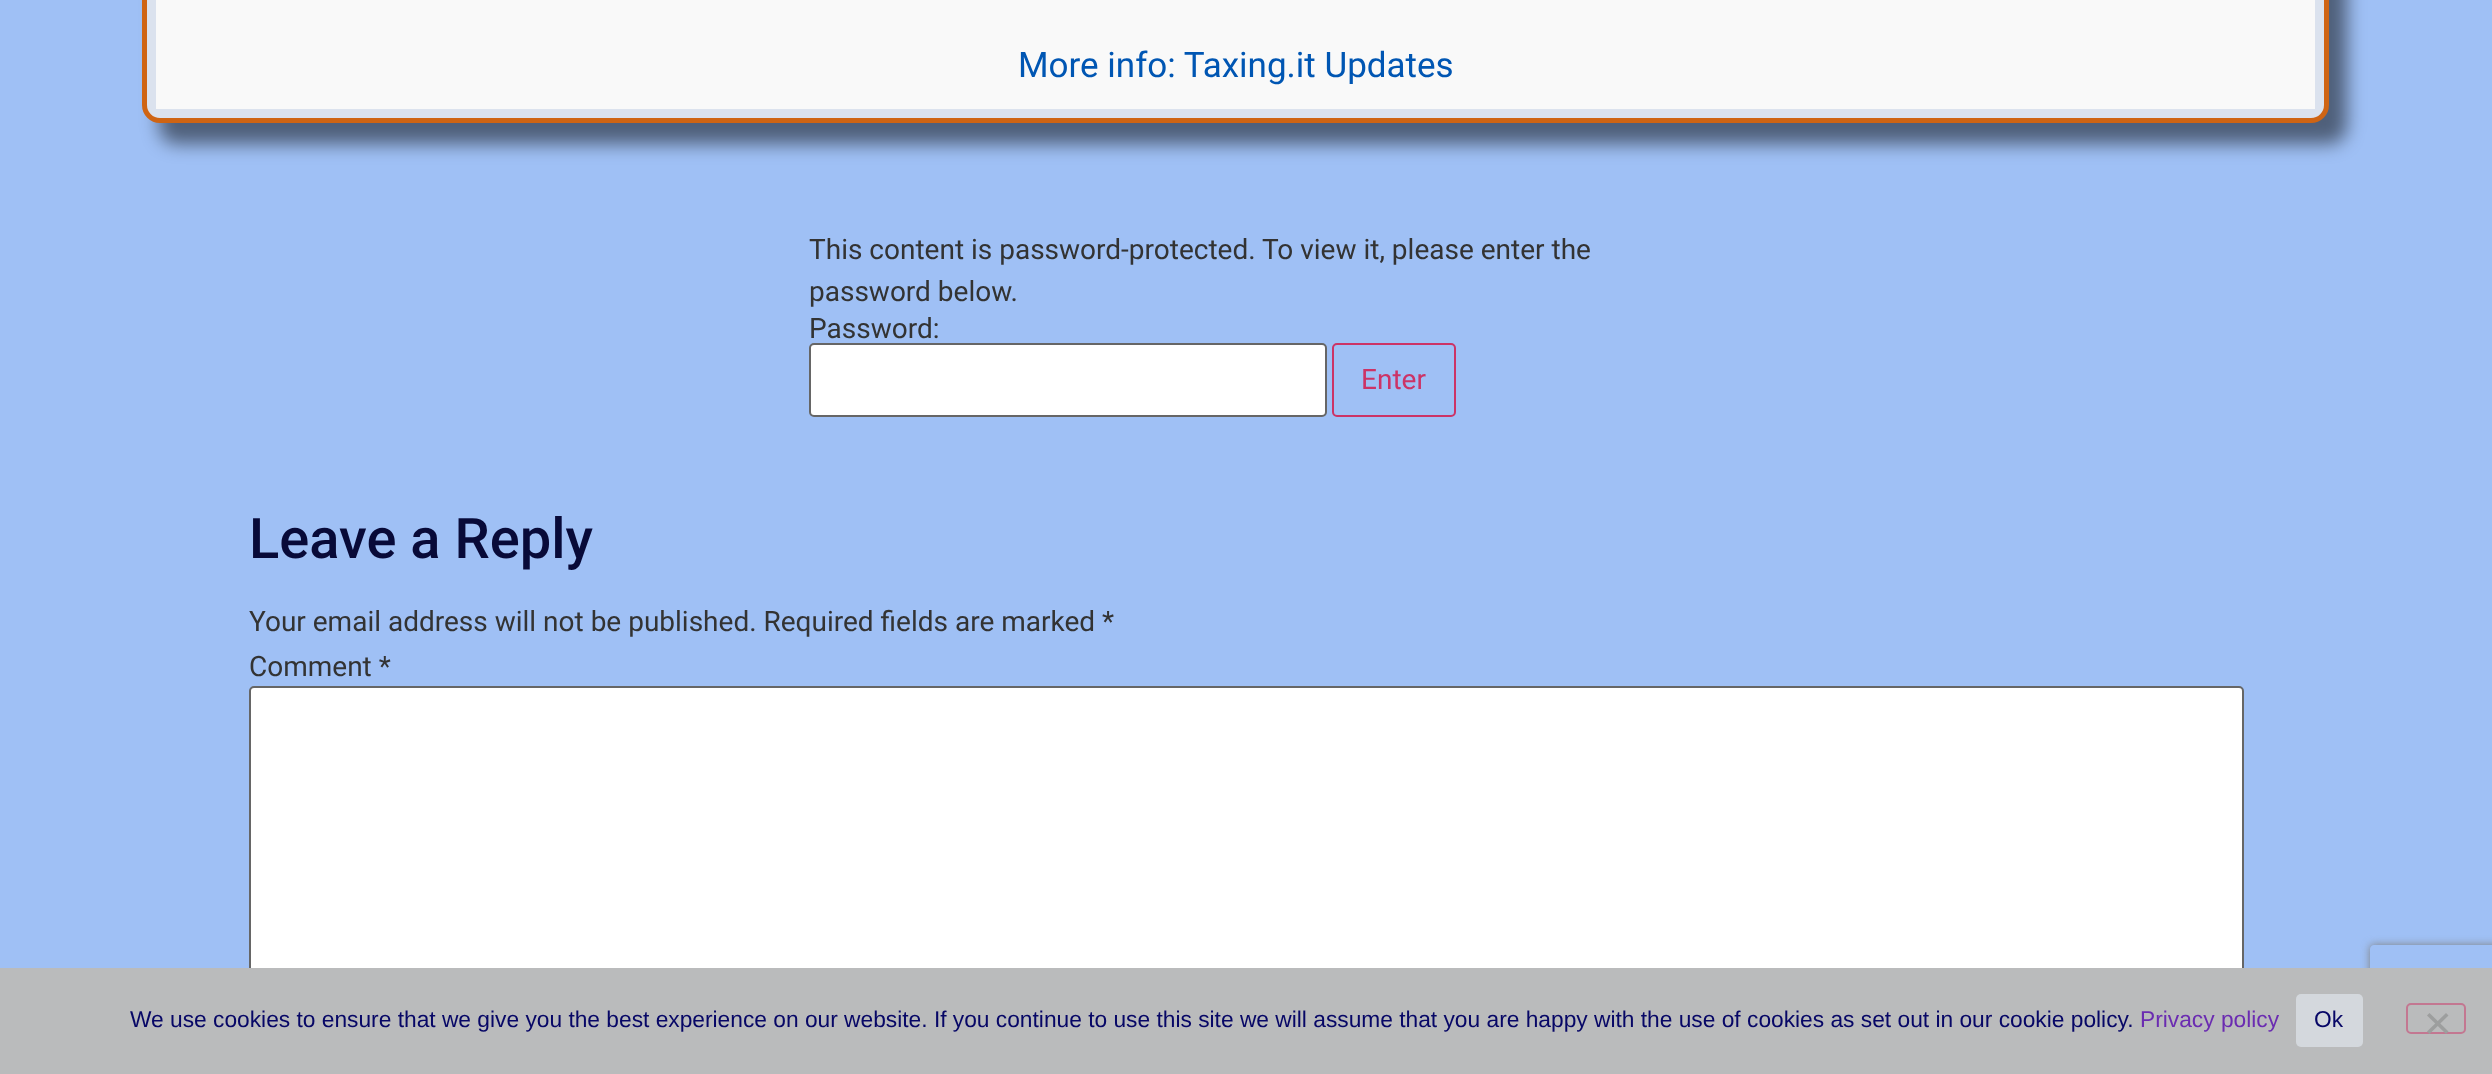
<svg xmlns="http://www.w3.org/2000/svg" width="2492" height="1074">
<style>
.a{font:35px Roboto;fill:#0056b3}
.b{font:28px Roboto;fill:#333}
.c{font:28px Roboto;fill:#c36}
.d{font:500 56px Roboto;fill:#080a38}
.e{font:22.75px Liberation Sans;fill:#070766}
.f{font:22.75px Liberation Sans;fill:#6b2cb1}
</style>
<defs>
<clipPath id="clip1"><path d="M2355 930h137v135h-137zm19 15h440c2 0 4 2 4 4v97c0 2-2 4-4 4h-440c-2 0-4-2-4-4v-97c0-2 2-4 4-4z" clip-rule="evenodd"/></clipPath>
</defs>
<rect width="100%" height="100%" fill="#9fc0f5"/>
<rect fill="#00000080" filter="blur(9px)" x="159" y="-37" width="2188" height="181" rx="18"/>
<rect fill="#dbe2ee" stroke="#cf6413" stroke-width="5" x="144.5" y="-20.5" width="2182" height="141" rx="15.5"/>
<path fill="#f9f9f9" d="M156 0h2159v109H156z"/>
<rect fill="#fff" stroke="#666" stroke-width="2" x="810" y="344" width="516" height="72" rx="4"/>
<rect fill="none" stroke="#c36" stroke-width="2" x="1333" y="344" width="122" height="72" rx="4"/>
<rect fill="#fff" stroke="#666" stroke-width="2" x="250" y="687" width="1993" height="366" rx="4"/>
<g clip-path="url(#clip1)">
<rect fill="#808080" filter="blur(4.5px)" x="2370" y="945" width="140" height="105" rx="4"/>
</g>
<path fill="#babbbc" d="M0 968h2492v106H0z"/>
<rect fill="#d4d8dd" x="2296" y="994" width="67" height="53" rx="5"/>
<rect fill="none" stroke="#c37791" stroke-width="2" x="2407" y="1004" width="58" height="29" rx="4"/>
<path fill="#9d9e9e" d="M2446 1013l2.5 2.5l-19 18.5l-2.5-2.5z"/>
<path fill="#9d9e9e" d="M2427 1015.5l2.5-2.5l19 18.5l-2.5 2.5z"/>
<text class="a" x="1018" y="77">More info: Taxing.it Updates</text>
<text class="b" x="809" y="259">This content is password-protected. To view it, please enter the</text>
<text class="b" x="809" y="301">password below.</text>
<text class="b" x="809" y="338">Password:</text>
<text class="c" x="1361" y="389">Enter</text>
<text class="d" x="249" y="558">Leave a Reply</text>
<text class="b" x="249" y="631">Your email address will not be published. Required fields are marked *</text>
<text class="b" x="249" y="676">Comment *</text>
<text class="e" x="130" y="1027">We use cookies to ensure that we give you the best experience on our website. If you continue to use this site we will assume that you are happy with the use of cookies as set out in our cookie policy.</text>
<text class="f" x="2140" y="1027">Privacy policy</text>
<text class="e" x="2314" y="1027">Ok</text>
</svg>
